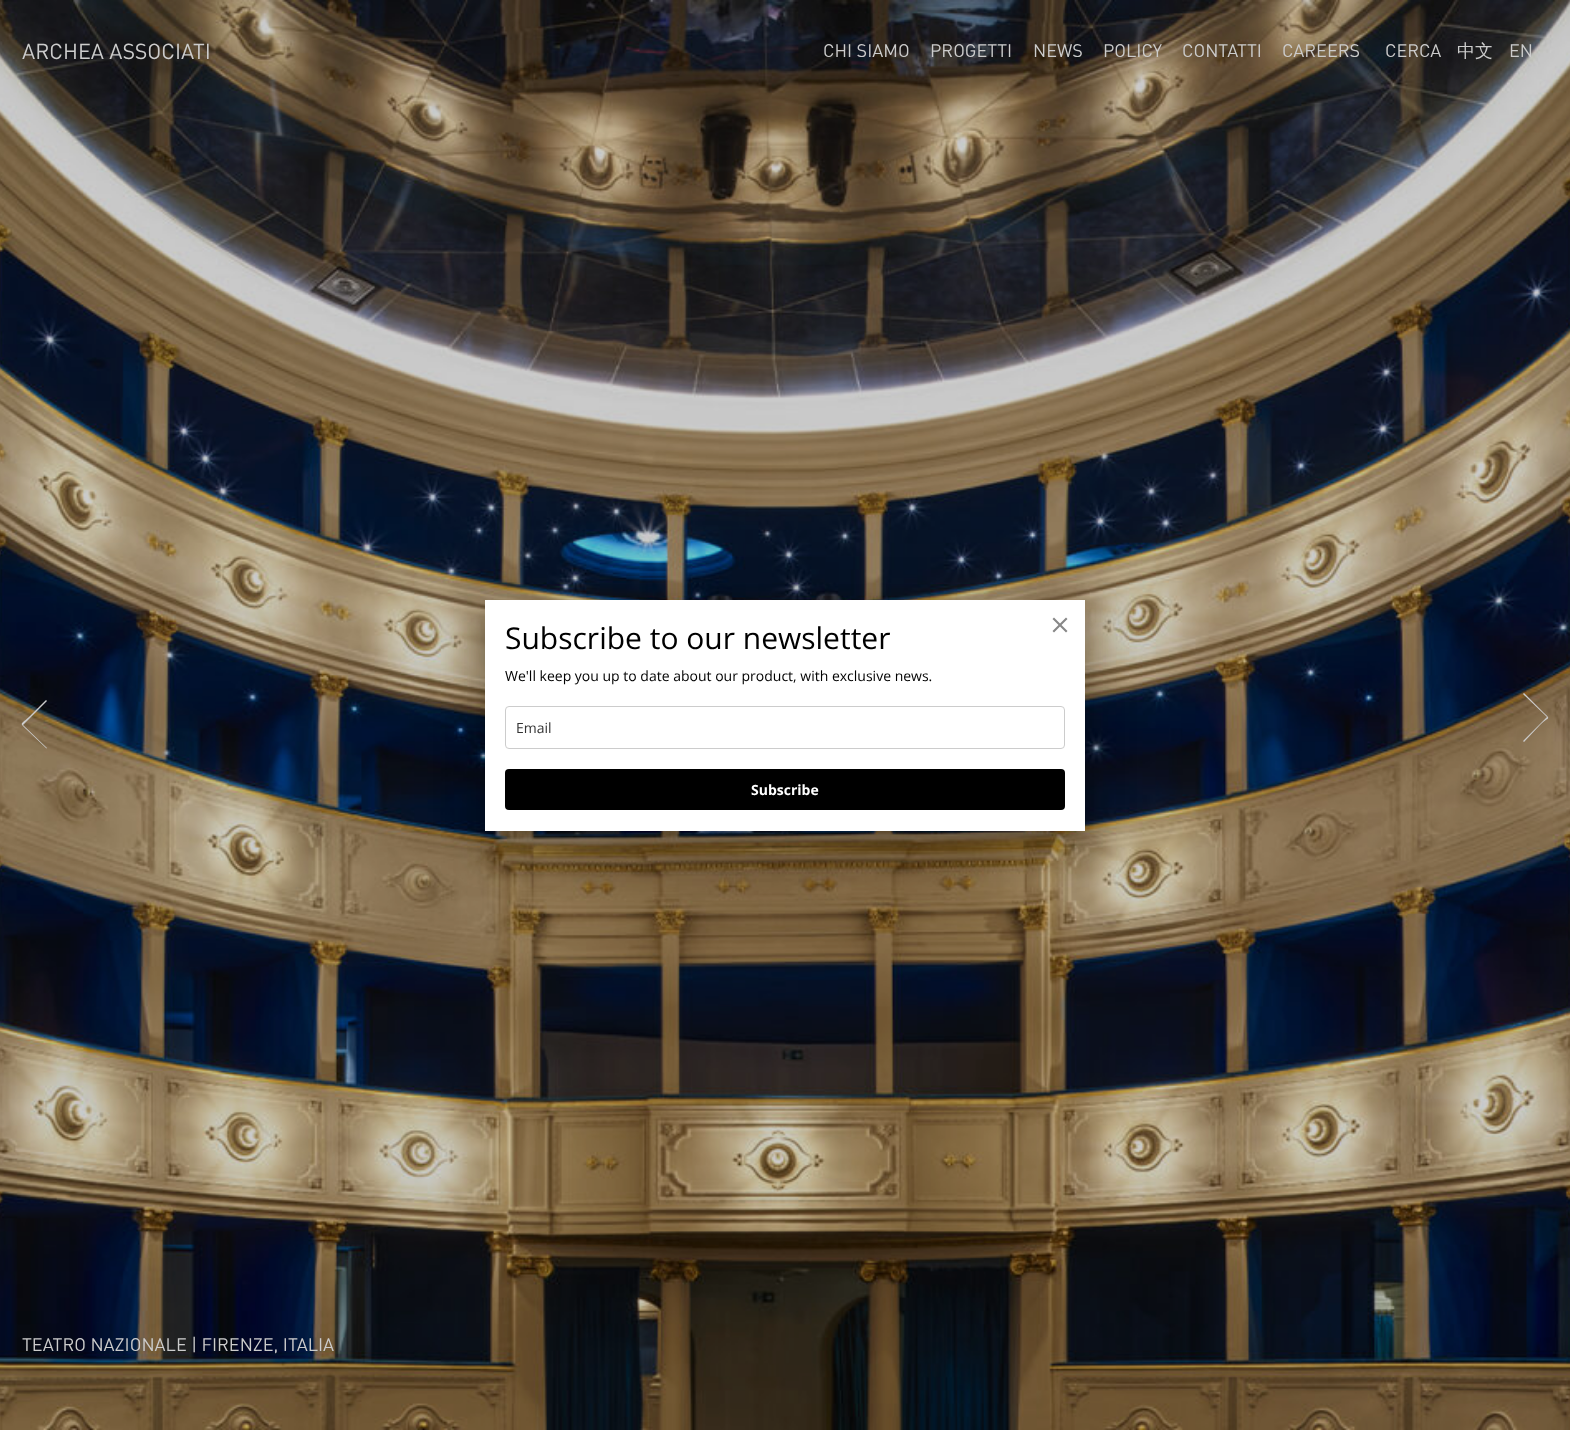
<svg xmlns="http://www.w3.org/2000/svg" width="1570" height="1430">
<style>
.a{font:21.5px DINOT;fill:#ccc}
.b{font:18px DINOT;fill:#ccc}
.c{font:500 18px WenQuanYi Zen Hei;fill:#ccc}
.d{font:30px Open Sans;fill:#000}
.e{font:14px Open Sans;fill:#000}
.f{font:14px Open Sans;fill:#333}
.g{font:bold 14px Open Sans;fill:#fff}
</style>
<rect width="100%" height="100%" fill="#fff"/>
<image href="2.png" x="0" y="0" width="1570" height="1430"/>
<path fill="#0000001a" filter="blur(23px)" d="M477 601h616v247H477z"/>
<path fill="#0000001a" filter="blur(19px)" d="M482 621h606v237H482z"/>
<path fill="#00000033" filter="blur(7.5px)" d="M492 618h586v217H492z"/>
<path fill="#fff" d="M485 600h600v231H485z"/>
<rect fill="none" stroke="#ccc" x="505.5" y="706.5" width="559" height="42" rx="3.5"/>
<rect fill="#000" x="505" y="769" width="560" height="41" rx="4"/>
<image href="1.png" x="1052" y="617" width="16" height="16"/>
<path fill="#ccc" d="M46 700l1 1l-24 24l24 23c0 0-1 1-1 0l-20-19c-7-7-5-4 4-13z"/>
<path fill="#ccc" d="M1524 742l-1-1l24-24l-24-23c0 0 1-1 1-1l20 20c7 7 5 3-4 12z"/>
<text class="a" x="22" y="59">ARCHEA ASSOCIATI</text>
<text class="b" x="823" y="57">CHI SIAMO</text>
<text class="b" x="930" y="57">PROGETTI</text>
<text class="b" x="1033" y="57">NEWS</text>
<text class="b" x="1103" y="57">POLICY</text>
<text class="b" x="1182" y="57">CONTATTI</text>
<text class="b" x="1282" y="57">CAREERS</text>
<text class="b" x="1385" y="57">CERCA</text>
<text class="c" x="1457" y="57">中文</text>
<text class="b" x="1509" y="57">EN</text>
<text class="d" x="505" y="649">Subscribe to our newsletter</text>
<text class="e" x="505" y="681">We'll keep you up to date about our product, with exclusive news.</text>
<text class="f" x="516" y="733">Email</text>
<text class="g" x="751" y="795">Subscribe</text>
<text class="b" x="22" y="1351">TEATRO NAZIONALE | FIRENZE, ITALIA</text>
</svg>
